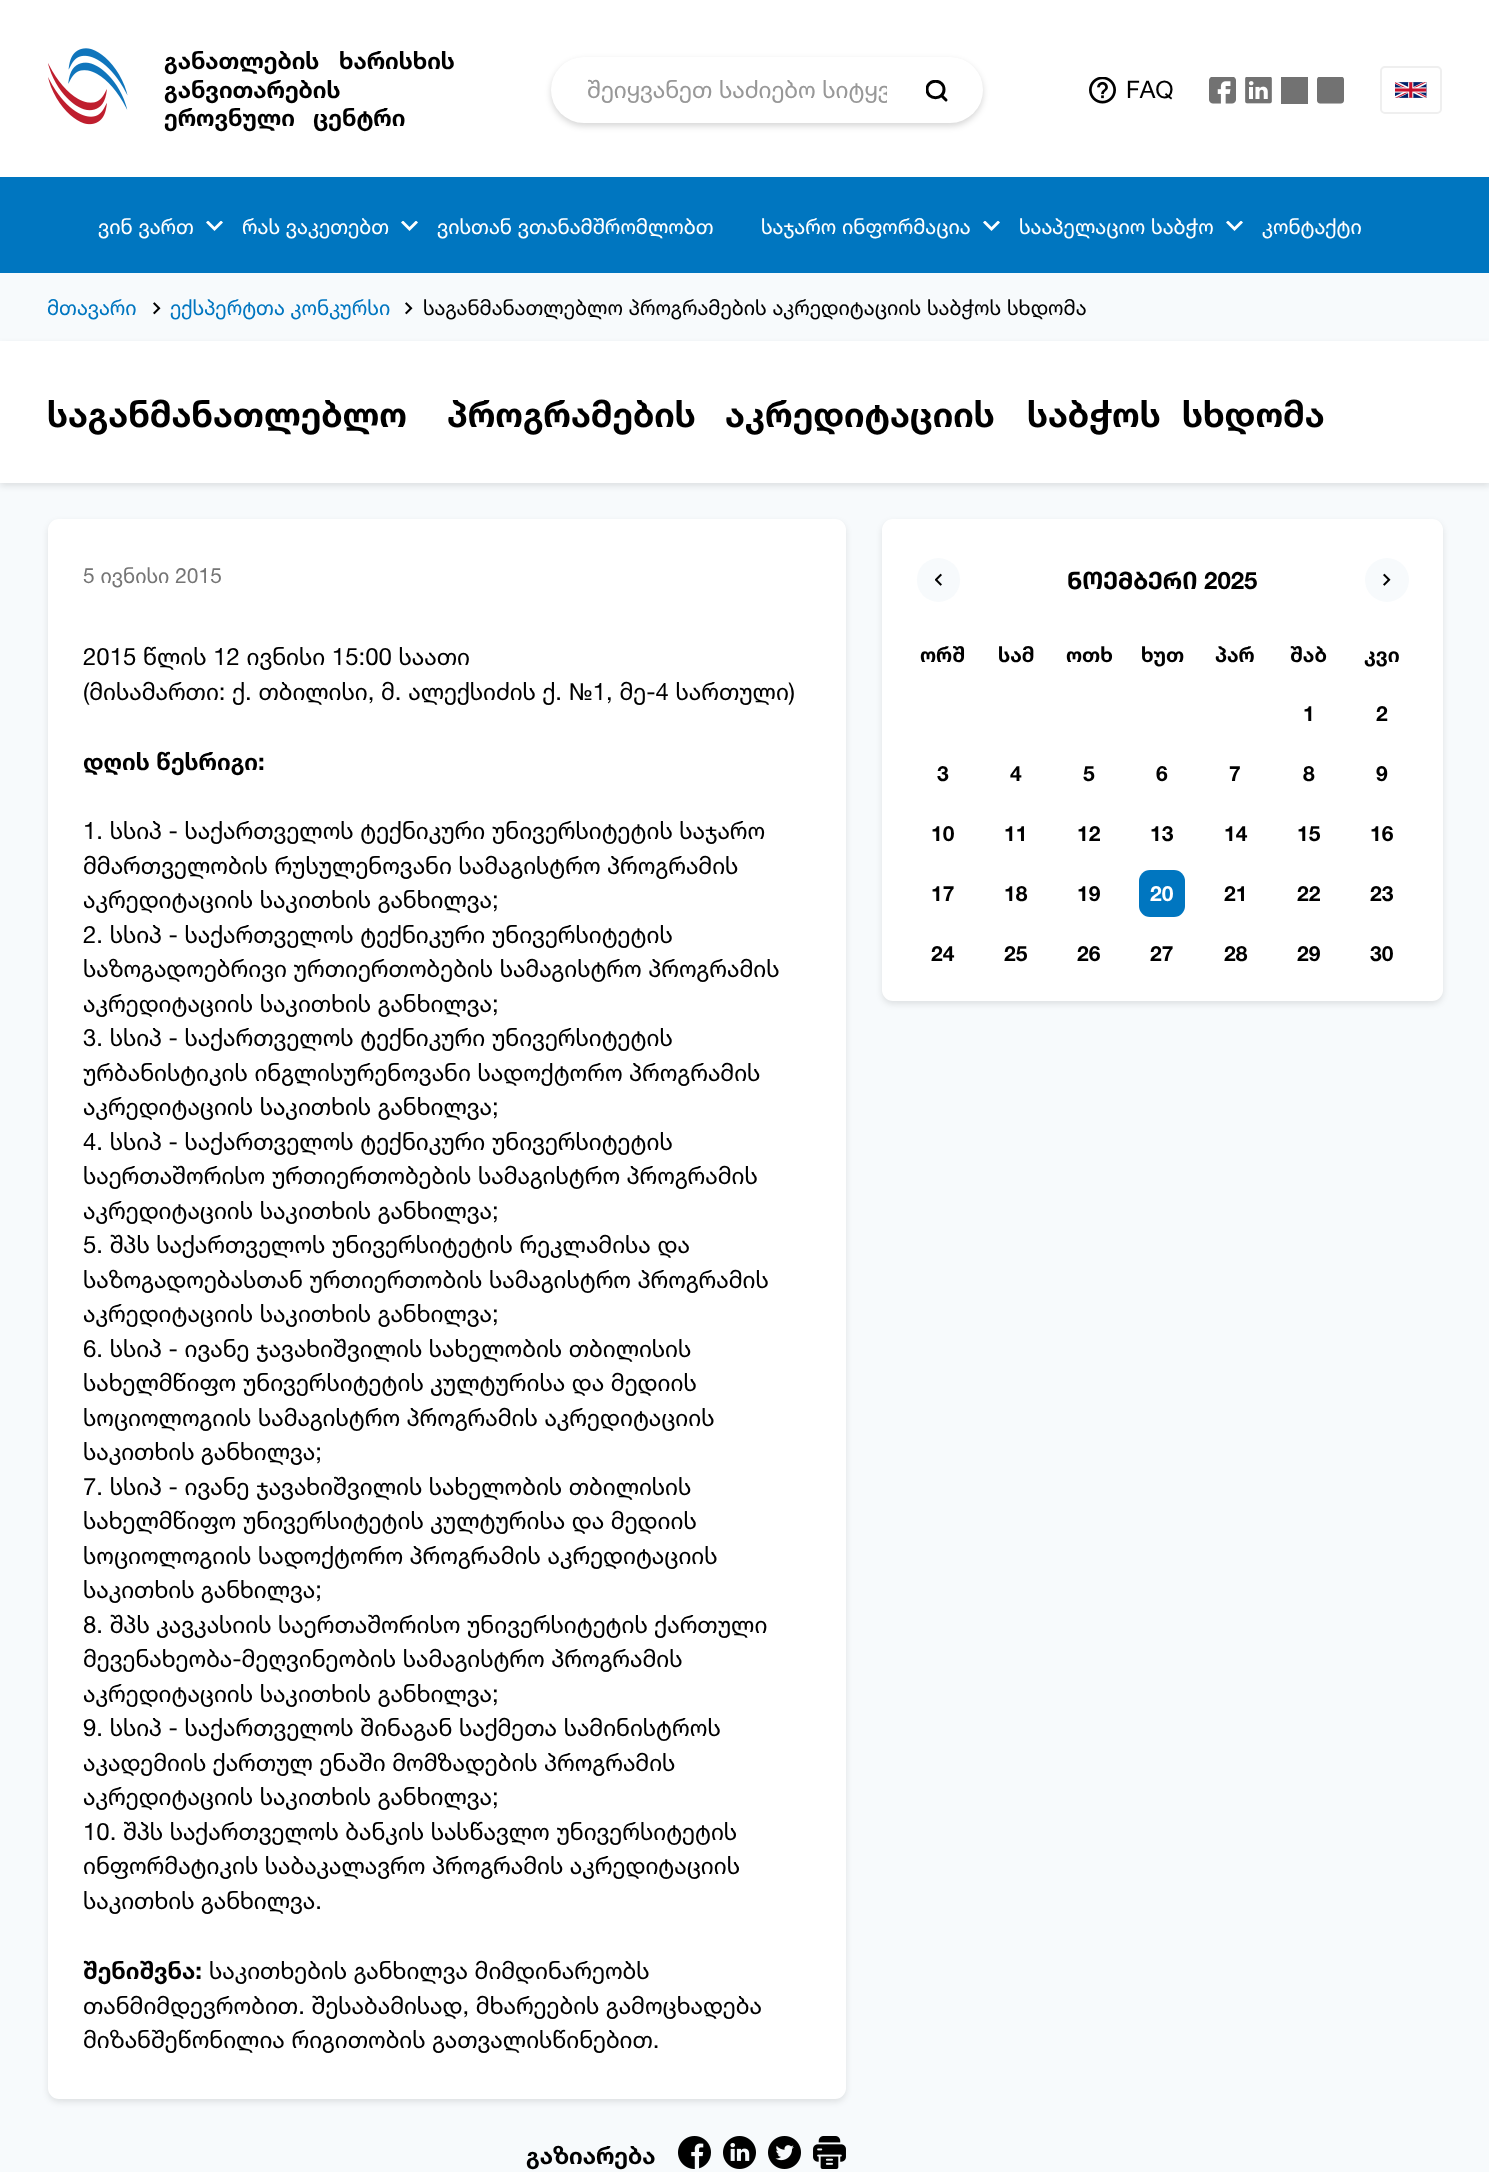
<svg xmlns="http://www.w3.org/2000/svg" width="1489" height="2172">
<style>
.a{font:bold 24px 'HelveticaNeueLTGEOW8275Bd';fill:#000}
.b{font:24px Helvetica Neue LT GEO;fill:#989898}
.c{font:24px Helvetica Neue LT GEO;fill:#000}
.d{font:21px Helvetica Neue LT GEO;fill:#fff}
.e{font:21px Helvetica Neue LT GEO;fill:#0076c0}
.f{font:21px Helvetica Neue LT GEO;fill:#000}
.g{font:bold 36px 'HelveticaNeueLTGEOW8275Bd';fill:#000}
.h{font:21px Helvetica Neue LT GEO;fill:#757575}
.i{font:bold 24px 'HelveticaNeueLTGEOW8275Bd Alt';fill:#000}
.j{font:bold 21px 'HelveticaNeueLTGEOW8275Bd';fill:#000}
.k{font:bold 21px 'HelveticaNeueLTGEOW8275Bd';fill:#fff}
</style>
<defs>
<clipPath id="clip1"><path d="M926 80h22v22H926z"/></clipPath>
<clipPath id="clip2"><path d="M587 75h300v30H587z"/></clipPath>
</defs>
<rect width="100%" height="100%" fill="#f7fafc"/>
<path fill="#fff" d="M0 0h1489v177H0z"/>
<image href="1.png" x="48" y="48" width="80" height="77"/>
<rect fill="#00000029" filter="blur(3px)" x="551" y="60" width="432" height="66" rx="33"/>
<rect fill="#fff" x="551" y="57" width="432" height="66" rx="33"/>
<g clip-path="url(#clip1)">
<path fill="none" stroke="#000" stroke-width="3" stroke-linecap="round" stroke-linejoin="round" d="M944 89.5c0 11-17 11-17 0c0-11 17-11 17 0z"/>
</g>
<path fill="none" stroke="#000" stroke-width="3" stroke-linecap="round" stroke-linejoin="round" d="M946 100l-4.5-4.5"/>
<image href="2.png" x="1089" y="77" width="27" height="27"/>
<image href="3.png" x="1209" y="77" width="27" height="27"/>
<image href="4.png" x="1245" y="77" width="27" height="27"/>
<path fill="#727272" d="M1281 77h27v27H1281z"/>
<image href="5.png" x="1317" y="77" width="27" height="27"/>
<rect fill="none" stroke="#efefef" stroke-width="2" x="1381" y="67" width="60" height="46" rx="4"/>
<image href="6.png" x="1395" y="82" width="32" height="16"/>
<path fill="#0076c0" d="M0 177h1489v96H0z"/>
<image href="7.png" x="206" y="221" width="17" height="10"/>
<image href="7.png" x="401" y="221" width="17" height="10"/>
<image href="7.png" x="983" y="221" width="17" height="10"/>
<image href="7.png" x="1226" y="221" width="17" height="10"/>
<image href="8.png" x="153" y="302" width="8" height="13"/>
<image href="8.png" x="405" y="302" width="8" height="13"/>
<path fill="#0000001a" filter="blur(3px)" d="M0 344h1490v142H0z"/>
<path fill="#fff" d="M0 341h1489v142H0z"/>
<rect fill="#0000001a" filter="blur(3px)" x="48" y="522" width="798" height="1580" rx="11"/>
<rect fill="#fff" x="48" y="519" width="798" height="1580" rx="11"/>
<image href="9.png" x="678" y="2136" width="33" height="33"/>
<image href="10.png" x="723" y="2136" width="33" height="33"/>
<image href="11.png" x="768" y="2136" width="33" height="33"/>
<image href="12.png" x="813" y="2136" width="33" height="33"/>
<rect fill="#0000001a" filter="blur(3px)" x="882" y="522" width="561" height="482" rx="11"/>
<rect fill="#fff" x="882" y="519" width="561" height="482" rx="11"/>
<rect fill="#f7fafc" x="917" y="558" width="43" height="44" rx="21.5"/>
<image href="13.png" x="935" y="573" width="7" height="13"/>
<circle fill="#f7fafc" cx="1387" cy="580" r="22"/>
<image href="14.png" x="1383" y="573" width="8" height="13"/>
<rect fill="#0076c0" x="1139" y="870" width="46" height="47" rx="11"/>
<text class="a" x="164" y="69">განათლების</text>
<text class="a" x="339" y="69">ხარისხის</text>
<text class="a" x="164" y="98">განვითარების</text>
<text class="a" x="164" y="126">ეროვნული</text>
<text class="a" x="313" y="126">ცენტრი</text>
<g clip-path="url(#clip2)">
<text class="b" x="587" y="98">შეიყვანეთ საძიებო სიტყვ</text>
</g>
<text class="c" x="1126" y="98">FAQ</text>
<text class="d" x="98" y="234">ვინ ვართ</text>
<text class="d" x="242" y="234">რას ვაკეთებთ</text>
<text class="d" x="437" y="234">ვისთან ვთანამშრომლობთ</text>
<text class="d" x="761" y="234">საჯარო ინფორმაცია</text>
<text class="d" x="1019" y="234">სააპელაციო საბჭო</text>
<text class="d" x="1262" y="234">კონტაქტი</text>
<text class="e" x="47" y="315">მთავარი</text>
<text class="e" x="170" y="315">ექსპერტთა კონკურსი</text>
<text class="f" x="423" y="315">საგანმანათლებლო პროგრამების აკრედიტაციის საბჭოს სხდომა</text>
<text class="g" x="47" y="427">საგანმანათლებლო</text>
<text class="g" x="447" y="427">პროგრამების</text>
<text class="g" x="725" y="427">აკრედიტაციის</text>
<text class="g" x="1027" y="427">საბჭოს</text>
<text class="g" x="1182" y="427">სხდომა</text>
<text class="h" x="83" y="583">5 ივნისი 2015</text>
<text class="c" x="83" y="665">2015 წლის 12 ივნისი 15:00 საათი</text>
<text class="c" x="83" y="700">(მისამართი: ქ. თბილისი, მ. ალექსიძის ქ. №1, მე-4 სართული)</text>
<text class="a" x="83" y="770">დღის წესრიგი:</text>
<text class="c" x="83" y="839">1. სსიპ - საქართველოს ტექნიკური უნივერსიტეტის საჯარო</text>
<text class="c" x="83" y="874">მმართველობის რუსულენოვანი სამაგისტრო პროგრამის</text>
<text class="c" x="83" y="908">აკრედიტაციის საკითხის განხილვა;</text>
<text class="c" x="83" y="943">2. სსიპ - საქართველოს ტექნიკური უნივერსიტეტის</text>
<text class="c" x="83" y="977">საზოგადოებრივი ურთიერთობების სამაგისტრო პროგრამის</text>
<text class="c" x="83" y="1012">აკრედიტაციის საკითხის განხილვა;</text>
<text class="c" x="83" y="1046">3. სსიპ - საქართველოს ტექნიკური უნივერსიტეტის</text>
<text class="c" x="83" y="1081">ურბანისტიკის ინგლისურენოვანი სადოქტორო პროგრამის</text>
<text class="c" x="83" y="1115">აკრედიტაციის საკითხის განხილვა;</text>
<text class="c" x="83" y="1150">4. სსიპ - საქართველოს ტექნიკური უნივერსიტეტის</text>
<text class="c" x="83" y="1184">საერთაშორისო ურთიერთობების სამაგისტრო პროგრამის</text>
<text class="c" x="83" y="1219">აკრედიტაციის საკითხის განხილვა;</text>
<text class="c" x="83" y="1253">5. შპს საქართველოს უნივერსიტეტის რეკლამისა და</text>
<text class="c" x="83" y="1288">საზოგადოებასთან ურთიერთობის სამაგისტრო პროგრამის</text>
<text class="c" x="83" y="1322">აკრედიტაციის საკითხის განხილვა;</text>
<text class="c" x="83" y="1357">6. სსიპ - ივანე ჯავახიშვილის სახელობის თბილისის</text>
<text class="c" x="83" y="1391">სახელმწიფო უნივერსიტეტის კულტურისა და მედიის</text>
<text class="c" x="83" y="1426">სოციოლოგიის სამაგისტრო პროგრამის აკრედიტაციის</text>
<text class="c" x="83" y="1460">საკითხის განხილვა;</text>
<text class="c" x="83" y="1495">7. სსიპ - ივანე ჯავახიშვილის სახელობის თბილისის</text>
<text class="c" x="83" y="1529">სახელმწიფო უნივერსიტეტის კულტურისა და მედიის</text>
<text class="c" x="83" y="1564">სოციოლოგიის სადოქტორო პროგრამის აკრედიტაციის</text>
<text class="c" x="83" y="1598">საკითხის განხილვა;</text>
<text class="c" x="83" y="1633">8. შპს კავკასიის საერთაშორისო უნივერსიტეტის ქართული</text>
<text class="c" x="83" y="1667">მევენახეობა-მეღვინეობის სამაგისტრო პროგრამის</text>
<text class="c" x="83" y="1702">აკრედიტაციის საკითხის განხილვა;</text>
<text class="c" x="83" y="1736">9. სსიპ - საქართველოს შინაგან საქმეთა სამინისტროს</text>
<text class="c" x="83" y="1771">აკადემიის ქართულ ენაში მომზადების პროგრამის</text>
<text class="c" x="83" y="1805">აკრედიტაციის საკითხის განხილვა;</text>
<text class="c" x="83" y="1840">10. შპს საქართველოს ბანკის სასწავლო უნივერსიტეტის</text>
<text class="c" x="83" y="1874">ინფორმატიკის საბაკალავრო პროგრამის აკრედიტაციის</text>
<text class="c" x="83" y="1909">საკითხის განხილვა.</text>
<text class="a" x="83" y="1979">შენიშვნა:</text>
<text class="c" x="209" y="1979">საკითხების განხილვა მიმდინარეობს</text>
<text class="c" x="83" y="2014">თანმიმდევრობით. შესაბამისად, მხარეების გამოცხადება</text>
<text class="c" x="83" y="2048">მიზანშეწონილია რიგითობის გათვალისწინებით.</text>
<text class="a" x="526" y="2164">გაზიარება</text>
<text class="i" x="1067" y="589">ნოემბერი 2025</text>
<text class="j" x="920" y="662">ორშ</text>
<text class="j" x="998" y="662">სამ</text>
<text class="j" x="1066" y="662">ოთხ</text>
<text class="j" x="1141" y="662">ხუთ</text>
<text class="j" x="1215" y="662">პარ</text>
<text class="j" x="1290" y="662">შაბ</text>
<text class="j" x="1364" y="662">კვი</text>
<text class="j" x="1303" y="721">1</text>
<text class="j" x="1376" y="721">2</text>
<text class="j" x="937" y="781">3</text>
<text class="j" x="1010" y="781">4</text>
<text class="j" x="1083" y="781">5</text>
<text class="j" x="1156" y="781">6</text>
<text class="j" x="1229" y="781">7</text>
<text class="j" x="1303" y="781">8</text>
<text class="j" x="1376" y="781">9</text>
<text class="j" x="931" y="841">10</text>
<text class="j" x="1004" y="841">11</text>
<text class="j" x="1077" y="841">12</text>
<text class="j" x="1150" y="841">13</text>
<text class="j" x="1224" y="841">14</text>
<text class="j" x="1297" y="841">15</text>
<text class="j" x="1370" y="841">16</text>
<text class="j" x="931" y="901">17</text>
<text class="j" x="1004" y="901">18</text>
<text class="j" x="1077" y="901">19</text>
<text class="k" x="1150" y="901">20</text>
<text class="j" x="1224" y="901">21</text>
<text class="j" x="1297" y="901">22</text>
<text class="j" x="1370" y="901">23</text>
<text class="j" x="931" y="961">24</text>
<text class="j" x="1004" y="961">25</text>
<text class="j" x="1077" y="961">26</text>
<text class="j" x="1150" y="961">27</text>
<text class="j" x="1224" y="961">28</text>
<text class="j" x="1297" y="961">29</text>
<text class="j" x="1370" y="961">30</text>
</svg>
